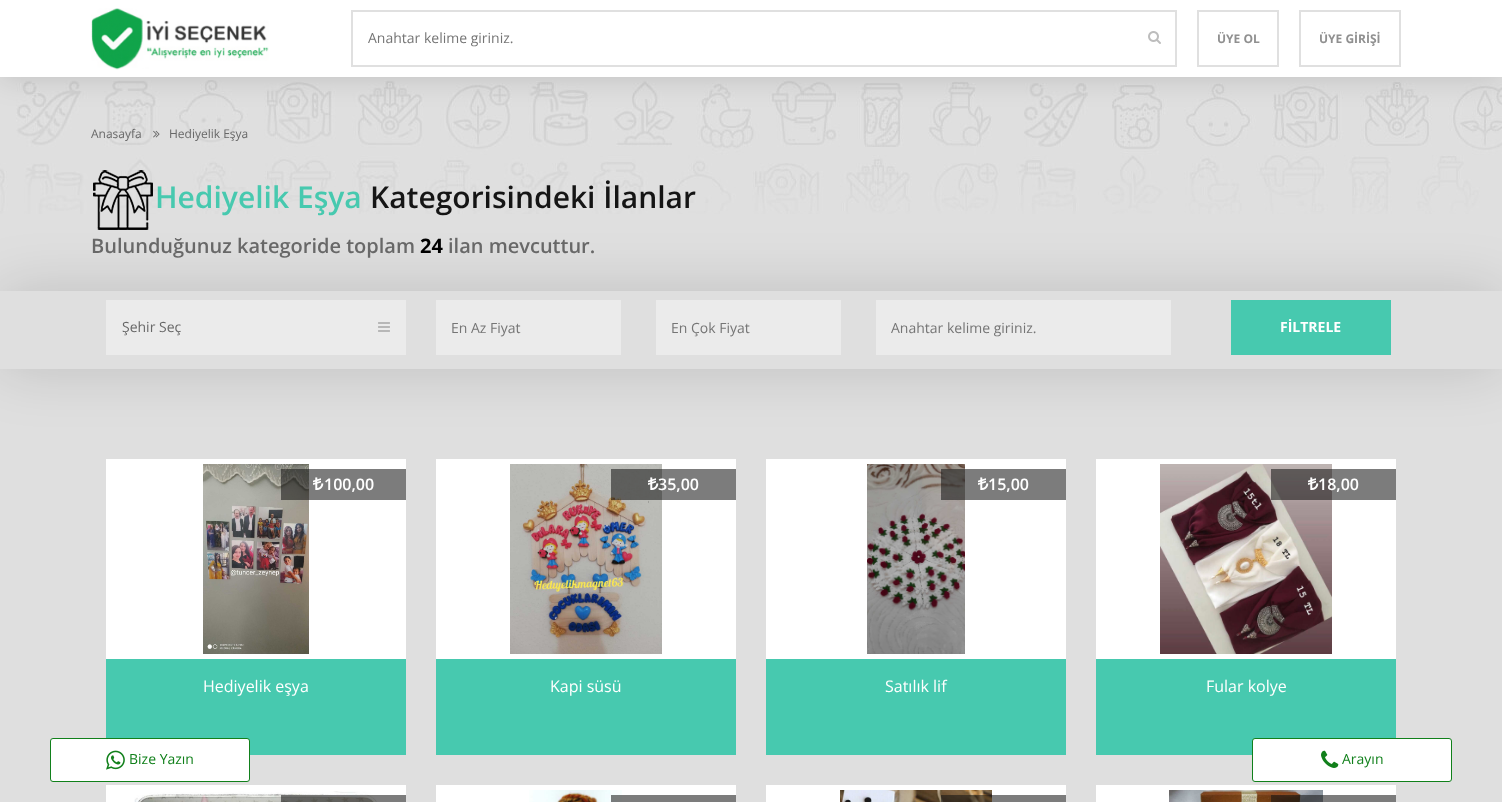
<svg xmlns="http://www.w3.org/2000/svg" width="1502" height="802">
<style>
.a{font:14px Open Sans;fill:#757575}
.b{font:bold 12px Open Sans;fill:#909090}
.c{font:12px Open Sans;fill:#686868}
.d{font:600 30px Open Sans;fill:#47c9af}
.e{font:600 30px Open Sans;fill:#151515}
.f{font:600 20px Open Sans;fill:#686868}
.g{font:bold 20px Open Sans;fill:#000}
.h{font:14px Open Sans;fill:#686868}
.i{font:bold 14px Open Sans;fill:#fff}
.j{font:600 16px Open Sans;fill:#fff}
.k{font:16px Open Sans;fill:#fff}
.l{font:14px Open Sans;fill:#11801b}
</style>
<defs>
<clipPath id="clip1"><path d="M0 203h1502v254h-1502zm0 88h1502v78h-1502z" clip-rule="evenodd"/></clipPath>
</defs>
<rect width="100%" height="100%" fill="#dfdfdf"/>
<image href="3.png" x="0" y="80" width="1502" height="134"/>
<path fill="#00000024" filter="blur(15px)" d="M0 0h1502v77H0z"/>
<path fill="#fff" d="M0 0h1502v77H0z"/>
<image href="1.png" x="91" y="8" width="178" height="62"/>
<path fill="none" stroke="#e0e0e0" stroke-width="2" d="M352 11h824v55H352z"/>
<image href="2.png" x="1148" y="31" width="13" height="13"/>
<path fill="none" stroke="#e0e0e0" stroke-width="2" d="M1198 11h80v55H1198z"/>
<path fill="none" stroke="#e0e0e0" stroke-width="2" d="M1300 11h100v55H1300z"/>
<image href="4.png" x="153" y="130" width="7" height="8"/>
<image href="5.png" x="93" y="170" width="60" height="60"/>
<g clip-path="url(#clip1)">
<path fill="#00000024" filter="blur(29px)" d="M0 291h1502v78H0z"/>
</g>
<path fill="#ebebeb" d="M106 300h300v55H106z"/>
<image href="6.png" x="378" y="322" width="12" height="10"/>
<path fill="#ebebeb" d="M436 300h185v55H436z"/>
<path fill="#ebebeb" d="M656 300h185v55H656z"/>
<path fill="#ebebeb" d="M876 300h295v55H876z"/>
<path fill="#47c9af" d="M1231 300h160v55H1231z"/>
<path fill="#47c9af" d="M106 659h300v96H106z"/>
<path fill="#fff" d="M106 459h300v200H106z"/>
<image href="7.png" x="203" y="464" width="106" height="190"/>
<path fill="#1515158f" d="M281 469h125v31H281z"/>
<image href="8.png" x="313" y="477" width="11" height="13"/>
<path fill="#47c9af" d="M436 659h300v96H436z"/>
<path fill="#fff" d="M436 459h300v200H436z"/>
<image href="9.png" x="510" y="464" width="152" height="190"/>
<path fill="#1515158f" d="M611 469h125v31H611z"/>
<image href="10.png" x="648" y="477" width="11" height="13"/>
<path fill="#47c9af" d="M766 659h300v96H766z"/>
<path fill="#fff" d="M766 459h300v200H766z"/>
<image href="11.png" x="867" y="464" width="98" height="190"/>
<path fill="#1515158f" d="M941 469h125v31H941z"/>
<image href="8.png" x="978" y="477" width="11" height="13"/>
<path fill="#47c9af" d="M1096 659h300v96H1096z"/>
<path fill="#fff" d="M1096 459h300v200H1096z"/>
<image href="12.png" x="1160" y="464" width="172" height="190"/>
<path fill="#1515158f" d="M1271 469h125v31H1271z"/>
<image href="13.png" x="1308" y="477" width="11" height="13"/>
<path fill="#fff" d="M106 785h300v17H106z"/>
<image href="14.png" x="134" y="791" width="243" height="11"/>
<path fill="#1515158f" d="M281 795h125v7H281z"/>
<path fill="#fff" d="M436 785h300v17H436z"/>
<image href="15.png" x="529" y="790" width="93" height="12"/>
<path fill="#1515158f" d="M611 795h125v7H611z"/>
<path fill="#fff" d="M766 785h300v17H766z"/>
<image href="16.png" x="840" y="790" width="152" height="12"/>
<path fill="#1515158f" d="M941 795h125v7H941z"/>
<path fill="#fff" d="M1096 785h300v17H1096z"/>
<image href="17.png" x="1169" y="790" width="154" height="12"/>
<path fill="#1515158f" d="M1271 795h125v7H1271z"/>
<rect fill="#fff" stroke="#11801b" x="50.5" y="738.5" width="199" height="43" rx="2.5"/>
<image href="18.png" x="106" y="750" width="19" height="20"/>
<rect fill="#fff" stroke="#11801b" x="1252.5" y="738.5" width="199" height="43" rx="2.5"/>
<image href="19.png" x="1321" y="750" width="18" height="18"/>
<text class="a" x="368" y="43">Anahtar kelime giriniz.</text>
<text class="b" x="1217" y="43">ÜYE OL</text>
<text class="b" x="1319" y="43">ÜYE GİRİŞİ</text>
<text class="c" x="91" y="138">Anasayfa</text>
<text class="c" x="169" y="138">Hediyelik Eşya</text>
<text class="d" x="155" y="208">Hediyelik Eşya</text>
<text class="e" x="370" y="208">Kategorisindeki İlanlar</text>
<text class="f" x="91" y="253">Bulunduğunuz kategoride toplam</text>
<text class="g" x="420" y="253">24</text>
<text class="f" x="448" y="253">ilan mevcuttur.</text>
<text class="h" x="122" y="332">Şehir Seç</text>
<text class="a" x="451" y="333">En Az Fiyat</text>
<text class="a" x="671" y="333">En Çok Fiyat</text>
<text class="a" x="891" y="333">Anahtar kelime giriniz.</text>
<text class="i" x="1280" y="332">FİLTRELE</text>
<text class="j" x="324" y="490">100,00</text>
<text class="k" x="203" y="692">Hediyelik eşya</text>
<text class="j" x="658" y="490">35,00</text>
<text class="k" x="550" y="692">Kapi süsü</text>
<text class="j" x="988" y="490">15,00</text>
<text class="k" x="885" y="692">Satılık lif</text>
<text class="j" x="1318" y="490">18,00</text>
<text class="k" x="1206" y="692">Fular kolye</text>
<text class="l" x="129" y="764">Bize Yazın</text>
<text class="l" x="1342" y="764">Arayın</text>
</svg>
